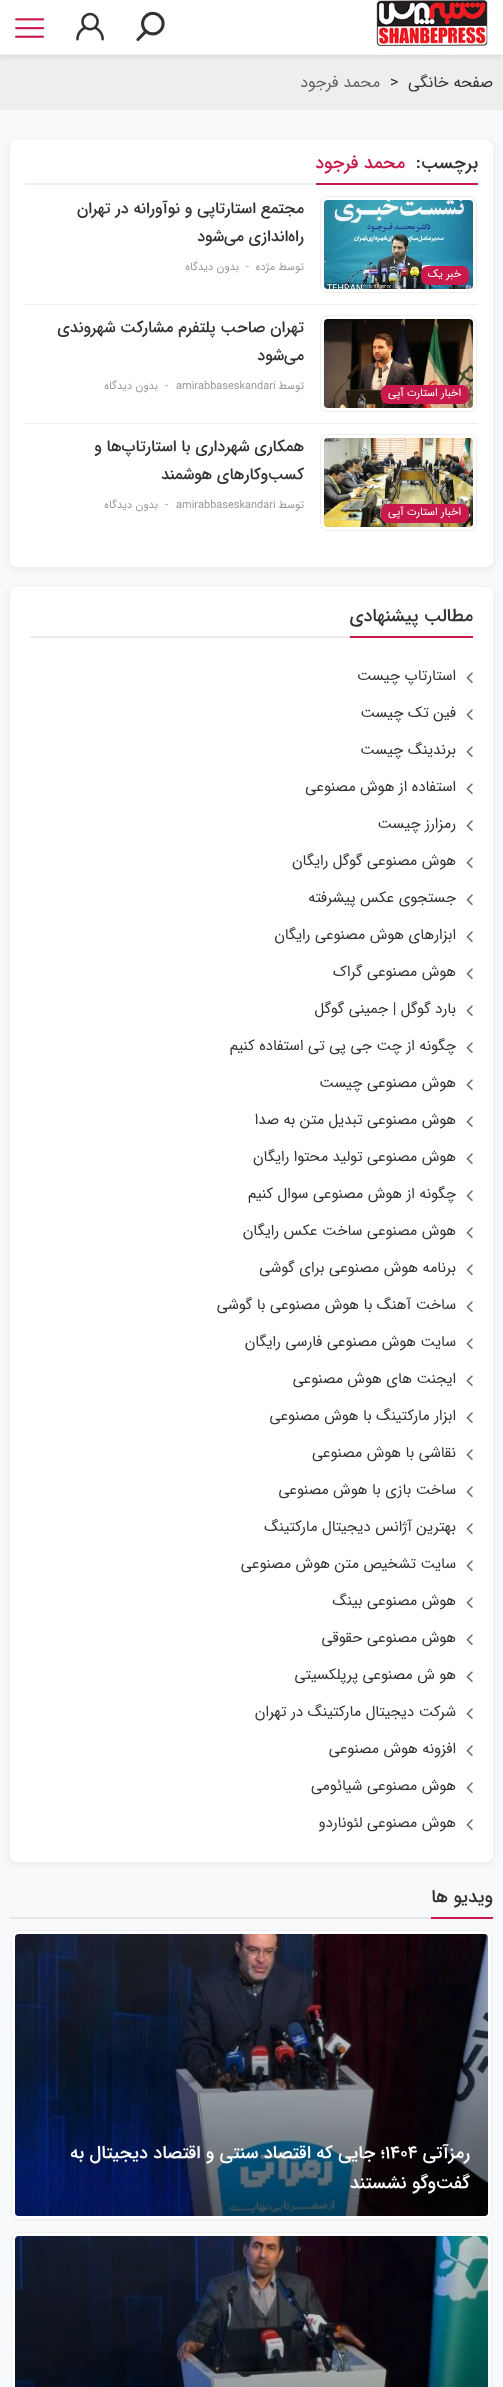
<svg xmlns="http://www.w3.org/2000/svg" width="503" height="2387">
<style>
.a{font:16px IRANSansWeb;direction:rtl;fill:#333}
.b{font:16px IRANSansWeb;fill:#333}
.c{font:16px IRANSansWeb;direction:rtl;fill:#626262}
.d{font:500 18px IRANSansWeb;direction:rtl;fill:#333}
.e{font:500 18px IRANSansWeb;direction:rtl;fill:#c91a4b}
.f{font:11px IRANSansWeb;direction:rtl;fill:#fff}
.g{font:500 16px IRANSansWeb;direction:rtl;fill:#333}
.h{font:11px IRANSansWeb;direction:rtl;fill:#999}
.i{font:11px IRANSansWeb;fill:#999}
.j{font:15px IRANSansWeb;direction:rtl;fill:#333}
.k{font:500 18px IRANSansWeb;direction:rtl;fill:#fff}
.l{font:500 18px IRANSansWeb;fill:#fff}
</style>
<defs>
<linearGradient id="g1" gradientUnits="userSpaceOnUse" x1="251" y1="1934" x2="252" y2="2287"><stop offset="0" stop-color="#000" stop-opacity="0"/><stop offset="1" stop-color="#000" stop-opacity="0.75"/></linearGradient>
<linearGradient id="g2" gradientUnits="userSpaceOnUse" x1="251" y1="2236" x2="252" y2="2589"><stop offset="0" stop-color="#000" stop-opacity="0"/><stop offset="1" stop-color="#000" stop-opacity="0.75"/></linearGradient>
</defs>
<rect width="100%" height="100%" fill="#f8f9fa"/>
<path fill="#eee" d="M0 55h503v55H0z"/>
<path fill="#00000026" filter="blur(3.5px)" d="M0 0h503v55H0z"/>
<path fill="#fff" d="M0 0h503v54H0z"/>
<path fill="#f2f2f2" d="M0 54h503v1H0z"/>
<image href="1.png" x="376" y="0" width="112" height="55"/>
<image href="2.png" x="136" y="11" width="29" height="30"/>
<image href="3.png" x="76" y="12" width="28" height="29"/>
<image href="4.png" x="15" y="18" width="30" height="20"/>
<rect fill="#eee" filter="blur(2.5px)" x="8" y="140" width="487" height="431" rx="9"/>
<rect fill="#fff" x="10" y="140" width="483" height="427" rx="7"/>
<path fill="#c91a4b" d="M316 183h162v2H316z"/>
<path fill="#ececec" d="M25 183h291v2H25z"/>
<rect fill="#eee" filter="blur(0.5px)" x="320" y="196" width="157" height="97" rx="8"/>
<rect fill="none" stroke="#fff" stroke-width="3" x="322.5" y="198.5" width="152" height="92" rx="5.5"/>
<image href="5.png" x="324" y="200" width="149" height="89"/>
<rect fill="#c91a4b" x="421" y="266" width="48" height="19" rx="7"/>
<path fill="#eee" d="M25 304h453v1H25z"/>
<rect fill="#eee" filter="blur(0.5px)" x="320" y="315" width="157" height="97" rx="8"/>
<rect fill="none" stroke="#fff" stroke-width="3" x="322.5" y="317.5" width="152" height="92" rx="5.5"/>
<image href="6.png" x="324" y="319" width="149" height="89"/>
<rect fill="#c91a4b" x="381" y="385" width="88" height="19" rx="7"/>
<path fill="#eee" d="M25 423h453v1H25z"/>
<rect fill="#eee" filter="blur(0.5px)" x="320" y="434" width="157" height="97" rx="8"/>
<rect fill="none" stroke="#fff" stroke-width="3" x="322.5" y="436.5" width="152" height="92" rx="5.5"/>
<image href="7.png" x="324" y="438" width="149" height="89"/>
<rect fill="#c91a4b" x="381" y="504" width="88" height="19" rx="7"/>
<rect fill="#eee" filter="blur(2.5px)" x="8" y="587" width="487" height="1279" rx="9"/>
<rect fill="#fff" x="10" y="587" width="483" height="1275" rx="7"/>
<path fill="#c91a4b" d="M350 636h123v2H350z"/>
<path fill="#ececec" d="M30 636h320v2H30z"/>
<image href="8.png" x="466" y="672" width="7" height="12"/>
<image href="8.png" x="466" y="709" width="7" height="12"/>
<image href="8.png" x="466" y="746" width="7" height="12"/>
<image href="8.png" x="466" y="783" width="7" height="12"/>
<image href="8.png" x="466" y="820" width="7" height="12"/>
<image href="8.png" x="466" y="857" width="7" height="12"/>
<image href="8.png" x="466" y="894" width="7" height="12"/>
<image href="8.png" x="466" y="931" width="7" height="12"/>
<image href="8.png" x="466" y="968" width="7" height="12"/>
<image href="8.png" x="466" y="1005" width="7" height="12"/>
<image href="8.png" x="466" y="1042" width="7" height="12"/>
<image href="8.png" x="466" y="1079" width="7" height="12"/>
<image href="8.png" x="466" y="1116" width="7" height="12"/>
<image href="8.png" x="466" y="1153" width="7" height="12"/>
<image href="8.png" x="466" y="1190" width="7" height="12"/>
<image href="8.png" x="466" y="1227" width="7" height="12"/>
<image href="8.png" x="466" y="1264" width="7" height="12"/>
<image href="8.png" x="466" y="1301" width="7" height="12"/>
<image href="8.png" x="466" y="1338" width="7" height="12"/>
<image href="8.png" x="466" y="1375" width="7" height="12"/>
<image href="8.png" x="466" y="1412" width="7" height="12"/>
<image href="8.png" x="466" y="1449" width="7" height="12"/>
<image href="8.png" x="466" y="1486" width="7" height="12"/>
<image href="8.png" x="466" y="1523" width="7" height="12"/>
<image href="8.png" x="466" y="1560" width="7" height="12"/>
<image href="8.png" x="466" y="1597" width="7" height="12"/>
<image href="8.png" x="466" y="1634" width="7" height="12"/>
<image href="8.png" x="466" y="1671" width="7" height="12"/>
<image href="8.png" x="466" y="1708" width="7" height="12"/>
<image href="8.png" x="466" y="1745" width="7" height="12"/>
<image href="8.png" x="466" y="1782" width="7" height="12"/>
<image href="8.png" x="466" y="1819" width="7" height="12"/>
<path fill="#c91a4b" d="M431 1917h62v2H431z"/>
<path fill="#e6e7e8" d="M10 1917h421v2H10z"/>
<rect fill="#eee" filter="blur(0.5px)" x="11" y="1930" width="481" height="290" rx="8"/>
<rect fill="none" stroke="#fff" stroke-width="3" x="13.5" y="1932.5" width="476" height="285" rx="5.5"/>
<image href="9.png" x="15" y="1934" width="473" height="282"/>
<rect fill="url(#g1)" x="15" y="1934" width="473" height="282" rx="4"/>
<rect fill="#eee" filter="blur(0.5px)" x="11" y="2232" width="481" height="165" rx="8"/>
<rect fill="none" stroke="#fff" stroke-width="3" x="13.5" y="2234.5" width="476" height="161" rx="5.5"/>
<image href="10.png" x="15" y="2236" width="473" height="151"/>
<path fill="url(#g2)" d="M15 2245h473v142H15z"/>
<text class="a" x="493" y="87">صفحه خانگی</text>
<text class="b" x="390" y="87">&gt;</text>
<text class="c" x="380" y="87">محمد فرجود</text>
<text class="d" x="478" y="168">برچسب:</text>
<text class="e" x="405" y="168">محمد فرجود</text>
<text class="f" x="461" y="277">خبر یک</text>
<text class="g" x="304" y="213">مجتمع استارتاپی و نوآورانه در تهران</text>
<text class="g" x="304" y="241">راه‌اندازی می‌شود</text>
<text class="h" x="304" y="270">توسط</text>
<text class="h" x="275" y="270">مژده</text>
<text class="i" x="246" y="270">-</text>
<text class="h" x="239" y="270">بدون دیدگاه</text>
<text class="f" x="461" y="396">اخبار استارت آپی</text>
<text class="g" x="304" y="332">تهران صاحب پلتفرم مشارکت شهروندی</text>
<text class="g" x="304" y="360">می‌شود</text>
<text class="h" x="304" y="389">توسط</text>
<text class="i" x="176" y="389">amirabbaseskandari</text>
<text class="i" x="165" y="389">-</text>
<text class="h" x="158" y="389">بدون دیدگاه</text>
<text class="f" x="461" y="515">اخبار استارت آپی</text>
<text class="g" x="304" y="451">همکاری شهرداری با استارتاپ‌ها و</text>
<text class="g" x="304" y="479">کسب‌وکارهای هوشمند</text>
<text class="h" x="304" y="508">توسط</text>
<text class="i" x="176" y="508">amirabbaseskandari</text>
<text class="i" x="165" y="508">-</text>
<text class="h" x="158" y="508">بدون دیدگاه</text>
<text class="d" x="473" y="621">مطالب پیشنهادی</text>
<text class="j" x="456" y="680">استارتاپ چیست</text>
<text class="j" x="456" y="717">فین تک چیست</text>
<text class="j" x="456" y="754">برندینگ چیست</text>
<text class="j" x="456" y="791">استفاده از هوش مصنوعی</text>
<text class="j" x="456" y="828">رمزارز چیست</text>
<text class="j" x="456" y="865">هوش مصنوعی گوگل رایگان</text>
<text class="j" x="456" y="902">جستجوی عکس پیشرفته</text>
<text class="j" x="456" y="939">ابزارهای هوش مصنوعی رایگان</text>
<text class="j" x="456" y="976">هوش مصنوعی گراک</text>
<text class="j" x="456" y="1013">بارد گوگل | جمینی گوگل</text>
<text class="j" x="456" y="1050">چگونه از چت جی پی تی استفاده کنیم</text>
<text class="j" x="456" y="1087">هوش مصنوعی چیست</text>
<text class="j" x="456" y="1124">هوش مصنوعی تبدیل متن به صدا</text>
<text class="j" x="456" y="1161">هوش مصنوعی تولید محتوا رایگان</text>
<text class="j" x="456" y="1198">چگونه از هوش مصنوعی سوال کنیم</text>
<text class="j" x="456" y="1235">هوش مصنوعی ساخت عکس رایگان</text>
<text class="j" x="456" y="1272">برنامه هوش مصنوعی برای گوشی</text>
<text class="j" x="456" y="1309">ساخت آهنگ با هوش مصنوعی با گوشی</text>
<text class="j" x="456" y="1346">سایت هوش مصنوعی فارسی رایگان</text>
<text class="j" x="456" y="1383">ایجنت های هوش مصنوعی</text>
<text class="j" x="456" y="1420">ابزار مارکتینگ با هوش مصنوعی</text>
<text class="j" x="456" y="1457">نقاشی با هوش مصنوعی</text>
<text class="j" x="456" y="1494">ساخت بازی با هوش مصنوعی</text>
<text class="j" x="456" y="1531">بهترین آژانس دیجیتال مارکتینگ</text>
<text class="j" x="456" y="1568">سایت تشخیص متن هوش مصنوعی</text>
<text class="j" x="456" y="1605">هوش مصنوعی بینگ</text>
<text class="j" x="456" y="1642">هوش مصنوعی حقوقی</text>
<text class="j" x="456" y="1679">هو ش مصنوعی پرپلکسیتی</text>
<text class="j" x="456" y="1716">شرکت دیجیتال مارکتینگ در تهران</text>
<text class="j" x="456" y="1753">افزونه هوش مصنوعی</text>
<text class="j" x="456" y="1790">هوش مصنوعی شیائومی</text>
<text class="j" x="456" y="1827">هوش مصنوعی لئوناردو</text>
<text class="d" x="493" y="1902">ویدیو ها</text>
<text class="k" x="470" y="2158">رمزآتی</text>
<text class="l" x="385" y="2158">۱۴۰۴</text>
<text class="k" x="385" y="2158">؛ جایی که اقتصاد سنتی و اقتصاد دیجیتال به</text>
<text class="k" x="470" y="2188">گفت‌وگو نشستند</text>
</svg>
